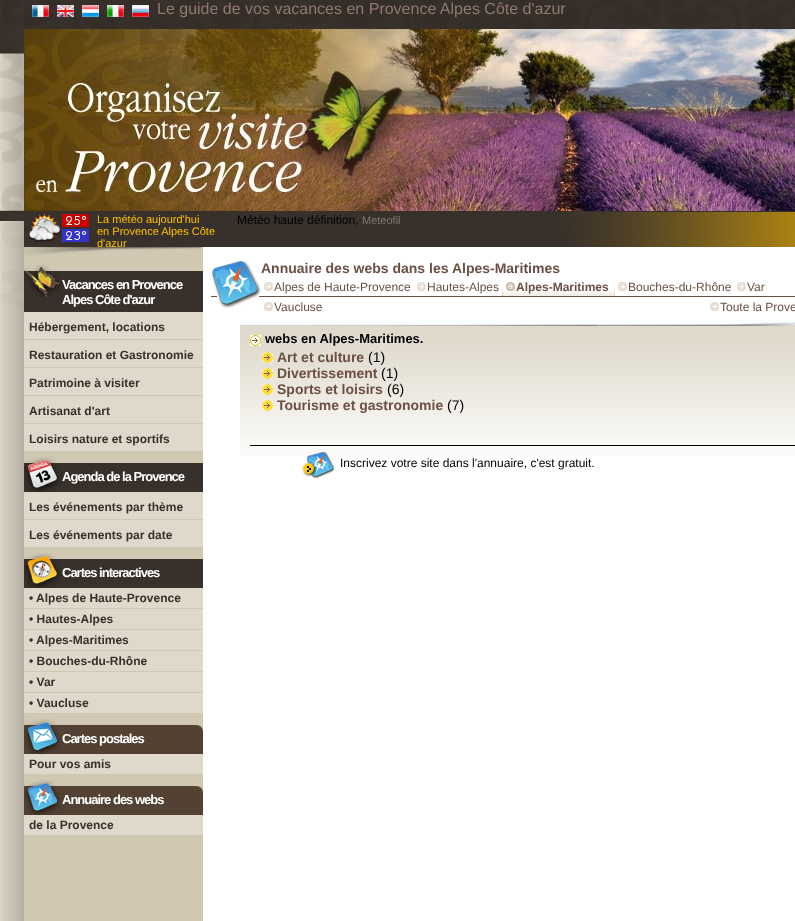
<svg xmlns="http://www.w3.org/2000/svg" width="795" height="921">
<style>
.a{font:16px Liberation Sans;fill:#8f7a6d}
.b{font:11px Liberation Sans;fill:#ffc000}
.c{font:12px Liberation Sans;fill:#000}
.d{font:11px Liberation Sans;fill:#7d7875}
.e{font:bold 13px Liberation Sans;letter-spacing:-1px;fill:#fff}
.f{font:bold 12px Liberation Sans;fill:#38302b}
.g{font:bold 14px Liberation Sans;fill:#6d5043}
.h{font:12px Liberation Sans;fill:#6d5043}
.i{font:bold 12px Liberation Sans;fill:#6d5043}
.j{font:bold 13px Liberation Sans;fill:#000}
.k{font:14px Liberation Sans;fill:#000}
</style>
<rect width="100%" height="100%" fill="#d9d4c6"/>
<image href="1.png" x="0" y="0" width="795" height="318"/>
<image href="2.png" x="2" y="1" width="22" height="920"/>
<image href="3.png" x="32" y="5" width="17" height="12"/>
<image href="4.png" x="57" y="5" width="17" height="12"/>
<image href="5.png" x="82" y="5" width="17" height="12"/>
<image href="6.png" x="107" y="5" width="17" height="12"/>
<image href="7.png" x="132" y="5" width="17" height="12"/>
<image href="8.png" x="24" y="29" width="771" height="182"/>
<image href="9.png" x="24" y="212" width="771" height="48"/>
<image href="10.png" x="29" y="213" width="60" height="30"/>
<path fill="#fff" d="M203 260h592v661H203z"/>
<path fill="#d0c8b2" d="M24 835h179v86H24z"/>
<path fill="#38302b" d="M24 298h179v14H24z"/>
<image href="11.png" x="24" y="260" width="179" height="38"/>
<path fill="#dfd9cb" d="M24 312h179v27H24z"/>
<path fill="#d0c8b2" d="M24 339h179v1H24z"/>
<path fill="#dfd9cb" d="M24 340h179v27H24z"/>
<path fill="#d0c8b2" d="M24 367h179v1H24z"/>
<path fill="#dfd9cb" d="M24 368h179v27H24z"/>
<path fill="#d0c8b2" d="M24 395h179v1H24z"/>
<path fill="#dfd9cb" d="M24 396h179v27H24z"/>
<path fill="#d0c8b2" d="M24 423h179v1H24z"/>
<path fill="#dfd9cb" d="M24 424h179v27H24z"/>
<path fill="#d0c8b2" d="M24 451h179v1H24z"/>
<image href="12.png" x="24" y="452" width="179" height="40"/>
<path fill="#dfd9cb" d="M24 492h179v27H24z"/>
<path fill="#d0c8b2" d="M24 519h179v1H24z"/>
<path fill="#dfd9cb" d="M24 520h179v27H24z"/>
<path fill="#d0c8b2" d="M24 547h179v1H24z"/>
<image href="13.png" x="24" y="548" width="179" height="40"/>
<path fill="#dfd9cb" d="M24 588h179v20H24z"/>
<path fill="#d0c8b2" d="M24 608h179v1H24z"/>
<path fill="#dfd9cb" d="M24 609h179v20H24z"/>
<path fill="#d0c8b2" d="M24 629h179v1H24z"/>
<path fill="#dfd9cb" d="M24 630h179v20H24z"/>
<path fill="#d0c8b2" d="M24 650h179v1H24z"/>
<path fill="#dfd9cb" d="M24 651h179v20H24z"/>
<path fill="#d0c8b2" d="M24 671h179v1H24z"/>
<path fill="#dfd9cb" d="M24 672h179v20H24z"/>
<path fill="#d0c8b2" d="M24 692h179v1H24z"/>
<path fill="#dfd9cb" d="M24 693h179v20H24z"/>
<path fill="#d0c8b2" d="M24 713h179v1H24z"/>
<image href="14.png" x="24" y="714" width="179" height="40"/>
<path fill="#dfd9cb" d="M24 754h179v20H24z"/>
<path fill="#d0c8b2" d="M24 774h179v1H24z"/>
<image href="15.png" x="24" y="775" width="179" height="40"/>
<path fill="#dfd9cb" d="M24 815h179v20H24z"/>
<path fill="#6d5043" d="M211 296h584v1H211z"/>
<image href="16.png" x="211" y="260" width="50" height="48"/>
<image href="17.png" x="264" y="282" width="9" height="9"/>
<image href="17.png" x="417" y="282" width="9" height="9"/>
<image href="18.png" x="503" y="290" width="111" height="6"/>
<image href="19.png" x="502" y="286" width="1" height="10"/>
<image href="20.png" x="506" y="282" width="9" height="9"/>
<image href="19.png" x="614" y="286" width="1" height="10"/>
<image href="17.png" x="618" y="282" width="9" height="9"/>
<image href="17.png" x="737" y="282" width="9" height="9"/>
<image href="17.png" x="264" y="302" width="9" height="9"/>
<image href="17.png" x="710" y="302" width="9" height="9"/>
<image href="21.png" x="240" y="322" width="555" height="134"/>
<image href="22.png" x="250" y="335" width="11" height="11"/>
<image href="23.png" x="262" y="352" width="11" height="11"/>
<image href="24.png" x="262" y="368" width="11" height="11"/>
<image href="25.png" x="262" y="384" width="11" height="11"/>
<image href="26.png" x="262" y="400" width="11" height="11"/>
<image href="27.png" x="302" y="452" width="33" height="27"/>
<path fill="#000" d="M250 445h545v1H250z"/>
<text class="a" x="157" y="14">Le guide de vos vacances en Provence Alpes Côte d'azur</text>
<text class="b" x="97" y="223">La météo aujourd'hui</text>
<text class="b" x="97" y="235">en Provence Alpes Côte</text>
<text class="b" x="97" y="247">d'azur</text>
<text class="c" x="237" y="224">Météo haute définition,</text>
<text class="d" x="362" y="224">Meteofil</text>
<text class="e" x="62" y="289">Vacances en Provence</text>
<text class="e" x="62" y="304">Alpes Côte d'azur</text>
<text class="f" x="29" y="331">Hébergement, locations</text>
<text class="f" x="29" y="359">Restauration et Gastronomie</text>
<text class="f" x="29" y="387">Patrimoine à visiter</text>
<text class="f" x="29" y="415">Artisanat d'art</text>
<text class="f" x="29" y="443">Loisirs nature et sportifs</text>
<text class="e" x="62" y="481">Agenda de la Provence</text>
<text class="f" x="29" y="511">Les événements par thème</text>
<text class="f" x="29" y="539">Les événements par date</text>
<text class="e" x="62" y="577">Cartes interactives</text>
<text class="f" x="29" y="602">• Alpes de Haute-Provence</text>
<text class="f" x="29" y="623">• Hautes-Alpes</text>
<text class="f" x="29" y="644">• Alpes-Maritimes</text>
<text class="f" x="29" y="665">• Bouches-du-Rhône</text>
<text class="f" x="29" y="686">• Var</text>
<text class="f" x="29" y="707">• Vaucluse</text>
<text class="e" x="62" y="743">Cartes postales</text>
<text class="f" x="29" y="768">Pour vos amis</text>
<text class="e" x="62" y="804">Annuaire des webs</text>
<text class="f" x="29" y="829">de la Provence</text>
<text class="g" x="261" y="273">Annuaire des webs dans les Alpes-Maritimes</text>
<text class="h" x="274" y="291">Alpes de Haute-Provence</text>
<text class="h" x="427" y="291">Hautes-Alpes</text>
<text class="i" x="516" y="291">Alpes-Maritimes</text>
<text class="h" x="628" y="291">Bouches-du-Rhône</text>
<text class="h" x="747" y="291">Var</text>
<text class="h" x="274" y="311">Vaucluse</text>
<text class="h" x="720" y="311">Toute la Prove</text>
<text class="j" x="265" y="343">webs en Alpes-Maritimes.</text>
<text class="g" x="277" y="362">Art et culture</text>
<text class="k" x="368" y="362">(1)</text>
<text class="g" x="277" y="378">Divertissement</text>
<text class="k" x="381" y="378">(1)</text>
<text class="g" x="277" y="394">Sports et loisirs</text>
<text class="k" x="387" y="394">(6)</text>
<text class="g" x="277" y="410">Tourisme et gastronomie</text>
<text class="k" x="447" y="410">(7)</text>
<text class="c" x="340" y="467">Inscrivez votre site dans l'annuaire, c'est gratuit.</text>
</svg>
